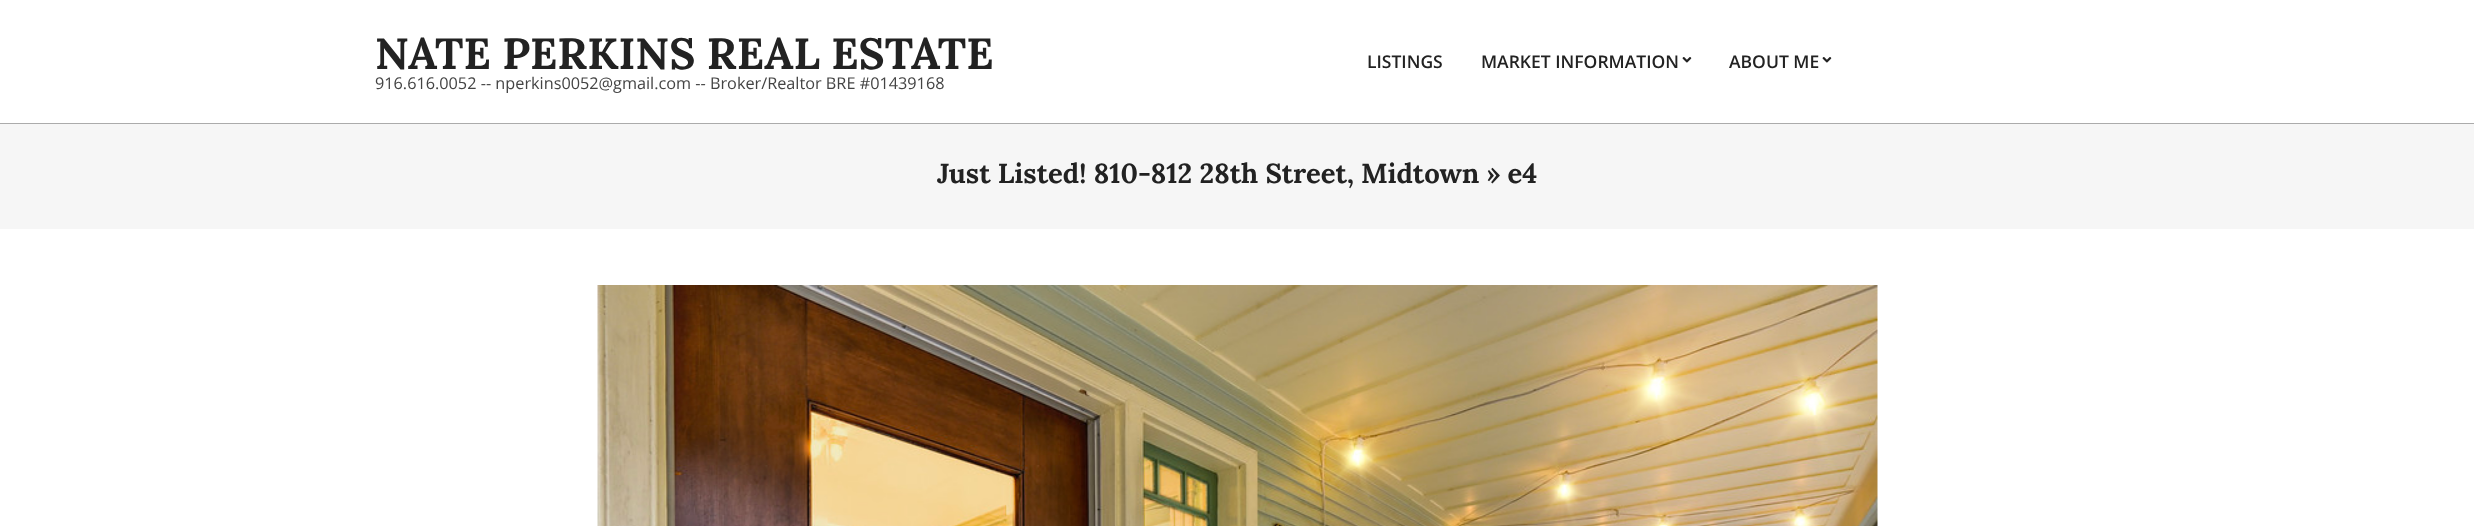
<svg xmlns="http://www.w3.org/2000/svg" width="2474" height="526">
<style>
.a{font:bold 43.75px Lora;fill:#222}
.b{font:16.25px Open Sans;fill:#444}
.c{font:600 17.5px Open Sans;fill:#222}
.d{font:bold 27.5px Lora;fill:#222}
</style>
<rect width="100%" height="100%" fill="#fff"/>
<path fill="#ababab" d="M0 123h2474v1H0z"/>
<image href="1.png" x="1682" y="57" width="10" height="6"/>
<image href="1.png" x="1822" y="57" width="10" height="6"/>
<path fill="#f6f6f6" d="M0 124h2474v105H0z"/>
<image href="2.png" x="597" y="285" width="1281" height="241"/>
<text class="a" x="375" y="69">NATE PERKINS REAL ESTATE</text>
<text class="b" x="375" y="89">916.616.0052 -- nperkins0052@gmail.com -- Broker/Realtor BRE #01439168</text>
<text class="c" x="1367" y="68">LISTINGS</text>
<text class="c" x="1481" y="68">MARKET INFORMATION</text>
<text class="c" x="1729" y="68">ABOUT ME</text>
<text class="d" x="937" y="183">Just Listed! 810-812 28th Street, Midtown » e4</text>
</svg>
